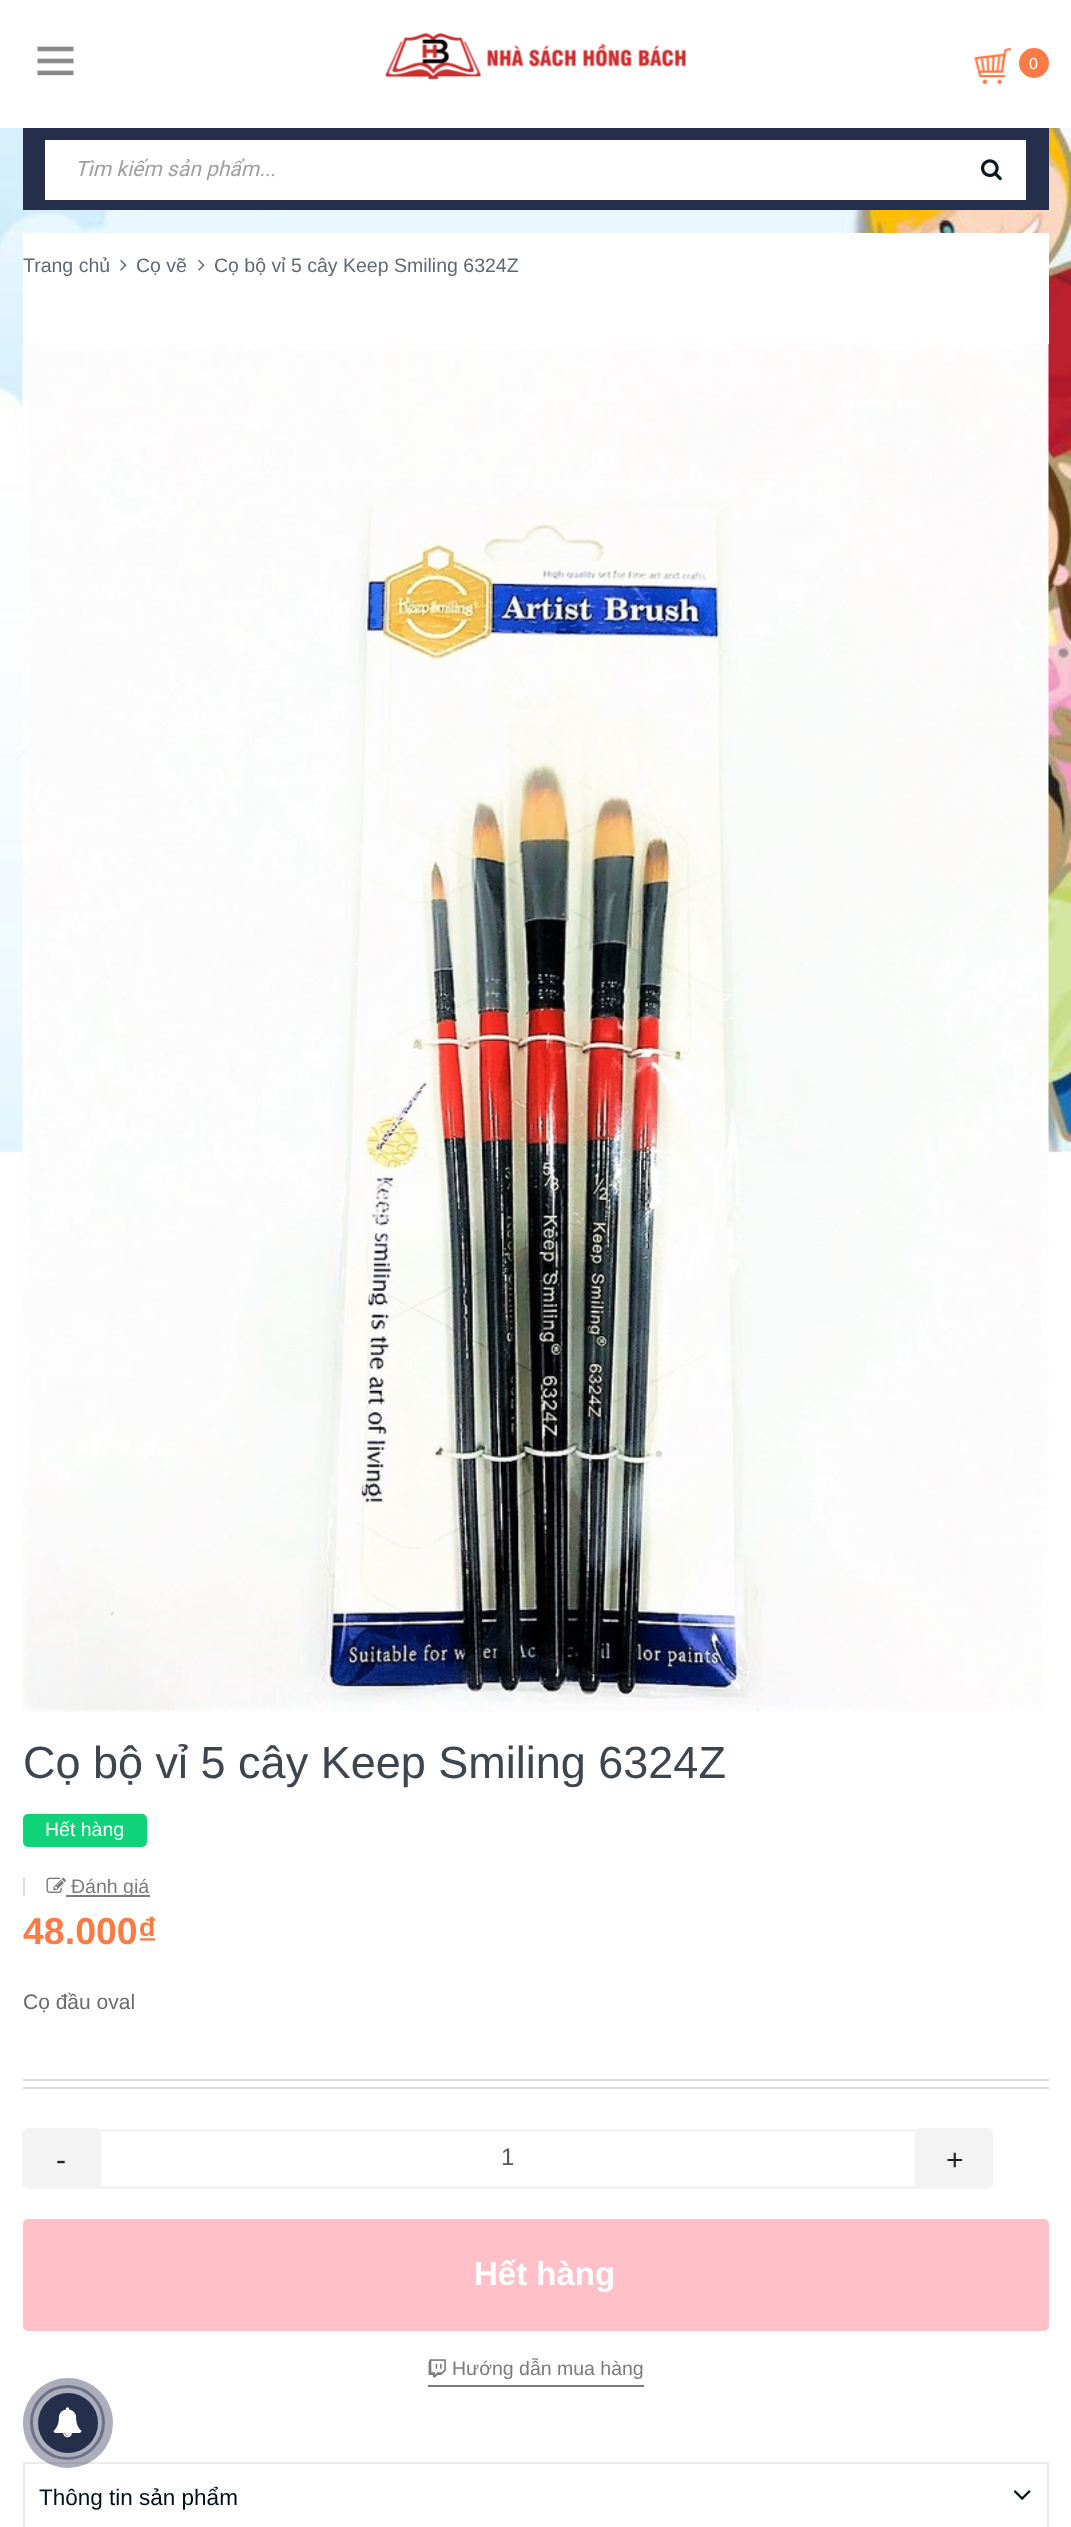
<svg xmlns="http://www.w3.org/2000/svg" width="1071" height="2527">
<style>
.a{font:16px Liberation Sans;fill:#fff}
.b{font:italic 21px Roboto;fill:#a0a0a0}
.c{font:19.5px Liberation Sans;fill:#5e6975}
.d{font:45px Liberation Sans;fill:#3d454e}
.e{font:19.5px Liberation Sans;fill:#fff}
.f{font:19.5px Liberation Sans;fill:#7b7b7b}
.g{font:bold 37.5px Liberation Sans;fill:#fb7b46}
.h{font:21px Liberation Sans;fill:#6b6b6b}
.i{font:30px Liberation Sans;fill:#222}
.j{font:24px Liberation Sans;fill:#55595c}
.k{font:bold 33px Liberation Sans;fill:#fff}
.l{font:22.5px Liberation Sans;fill:#001018}
</style>
<rect width="100%" height="100%" fill="#fff"/>
<image href="1.png" x="0" y="128" width="1071" height="1025"/>
<image href="2.png" x="37" y="46" width="37" height="30"/>
<image href="3.png" x="385" y="32" width="301" height="48"/>
<image href="4.png" x="974" y="48" width="37" height="36"/>
<circle fill="#fb7b46" cx="1034" cy="63" r="15"/>
<path fill="#252e4b" d="M23 128h1026v82H23z"/>
<path fill="#fff" d="M45 140h981v60H45z"/>
<image href="5.png" x="981" y="159" width="21" height="22"/>
<path fill="#fff" d="M23 233h1026v111H23z"/>
<image href="6.png" x="120" y="259" width="7" height="12"/>
<image href="6.png" x="198" y="259" width="7" height="12"/>
<image href="7.png" x="22" y="343" width="1027" height="1369"/>
<rect fill="#0ed379" x="23" y="1814" width="124" height="33" rx="5"/>
<path fill="#ddd" d="M23 1877h2v19H23z"/>
<image href="8.png" x="46" y="1877" width="20" height="16"/>
<path fill="#7b7b7b" d="M66 1895h84v2H66z"/>
<path fill="#ddd" d="M23 2079h1026v2H23z"/>
<path fill="#ddd" d="M23 2087h1026v2H23z"/>
<path fill="#f3f3f3" d="M28 2129h70v60h-70c-3 0-5-2-5-5v-50c0-3 2-5 5-5z"/>
<path fill="#f3f3f3" fill-rule="evenodd" d="M27 2128h71v60h-71c-2 0-5-2-5-4v-51c0-2 3-5 5-5zm0 2h71v57h-71c-2 0-3-1-3-3v-51c0-2 1-3 3-3z"/>
<path fill="none" stroke="#f3f3f3" stroke-width="3" d="M99.5 2130.5h817v57H99.5z"/>
<path fill="#f3f3f3" d="M918 2129h70c3 0 5 2 5 5v50c0 3-2 5-5 5h-70z"/>
<path fill="#f3f3f3" fill-rule="evenodd" d="M918 2128h70c3 0 5 3 5 5v51c0 2-2 4-5 4h-70zm0 2h70c2 0 4 1 4 3v51c0 2-2 3-4 3h-70z"/>
<rect fill="#ffc0c8" x="23" y="2219" width="1026" height="112" rx="5"/>
<image href="9.png" x="428" y="2359" width="18" height="19"/>
<path fill="#7b7b7b" d="M428 2385h216v2H428z"/>
<path fill="none" stroke="#ebebeb" stroke-width="2" d="M24 2463h1024v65H24z"/>
<image href="10.png" x="1013" y="2490" width="18" height="10"/>
<circle fill="none" stroke="#969cae" stroke-width="3" cx="67.5" cy="2422.5" r="36"/>
<circle fill="#252e4b61" cx="68" cy="2423" r="45"/>
<circle fill="#252e4b" cx="68" cy="2423" r="30"/>
<image href="11.png" x="53" y="2407" width="29" height="31"/>
<text class="a" x="1029" y="69">0</text>
<text class="b" x="75" y="176">Tìm kiếm sản phẩm...</text>
<text class="c" x="23" y="272">Trang chủ</text>
<text class="c" x="136" y="272">Cọ vẽ</text>
<text class="c" x="214" y="272">Cọ bộ vỉ 5 cây Keep Smiling 6324Z</text>
<text class="d" x="23" y="1778">Cọ bộ vỉ 5 cây Keep Smiling 6324Z</text>
<text class="e" x="45" y="1836">Hết hàng</text>
<text class="f" x="71" y="1893">Đánh giá</text>
<text class="g" x="23" y="1944">48.000₫</text>
<text class="h" x="23" y="2009">Cọ đầu oval</text>
<text class="i" x="56" y="2170">-</text>
<text class="j" x="501" y="2165">1</text>
<text class="i" x="946" y="2170">+</text>
<text class="k" x="474" y="2285">Hết hàng</text>
<text class="f" x="452" y="2375">Hướng dẫn mua hàng</text>
<text class="l" x="39" y="2505">Thông tin sản phẩm</text>
</svg>
